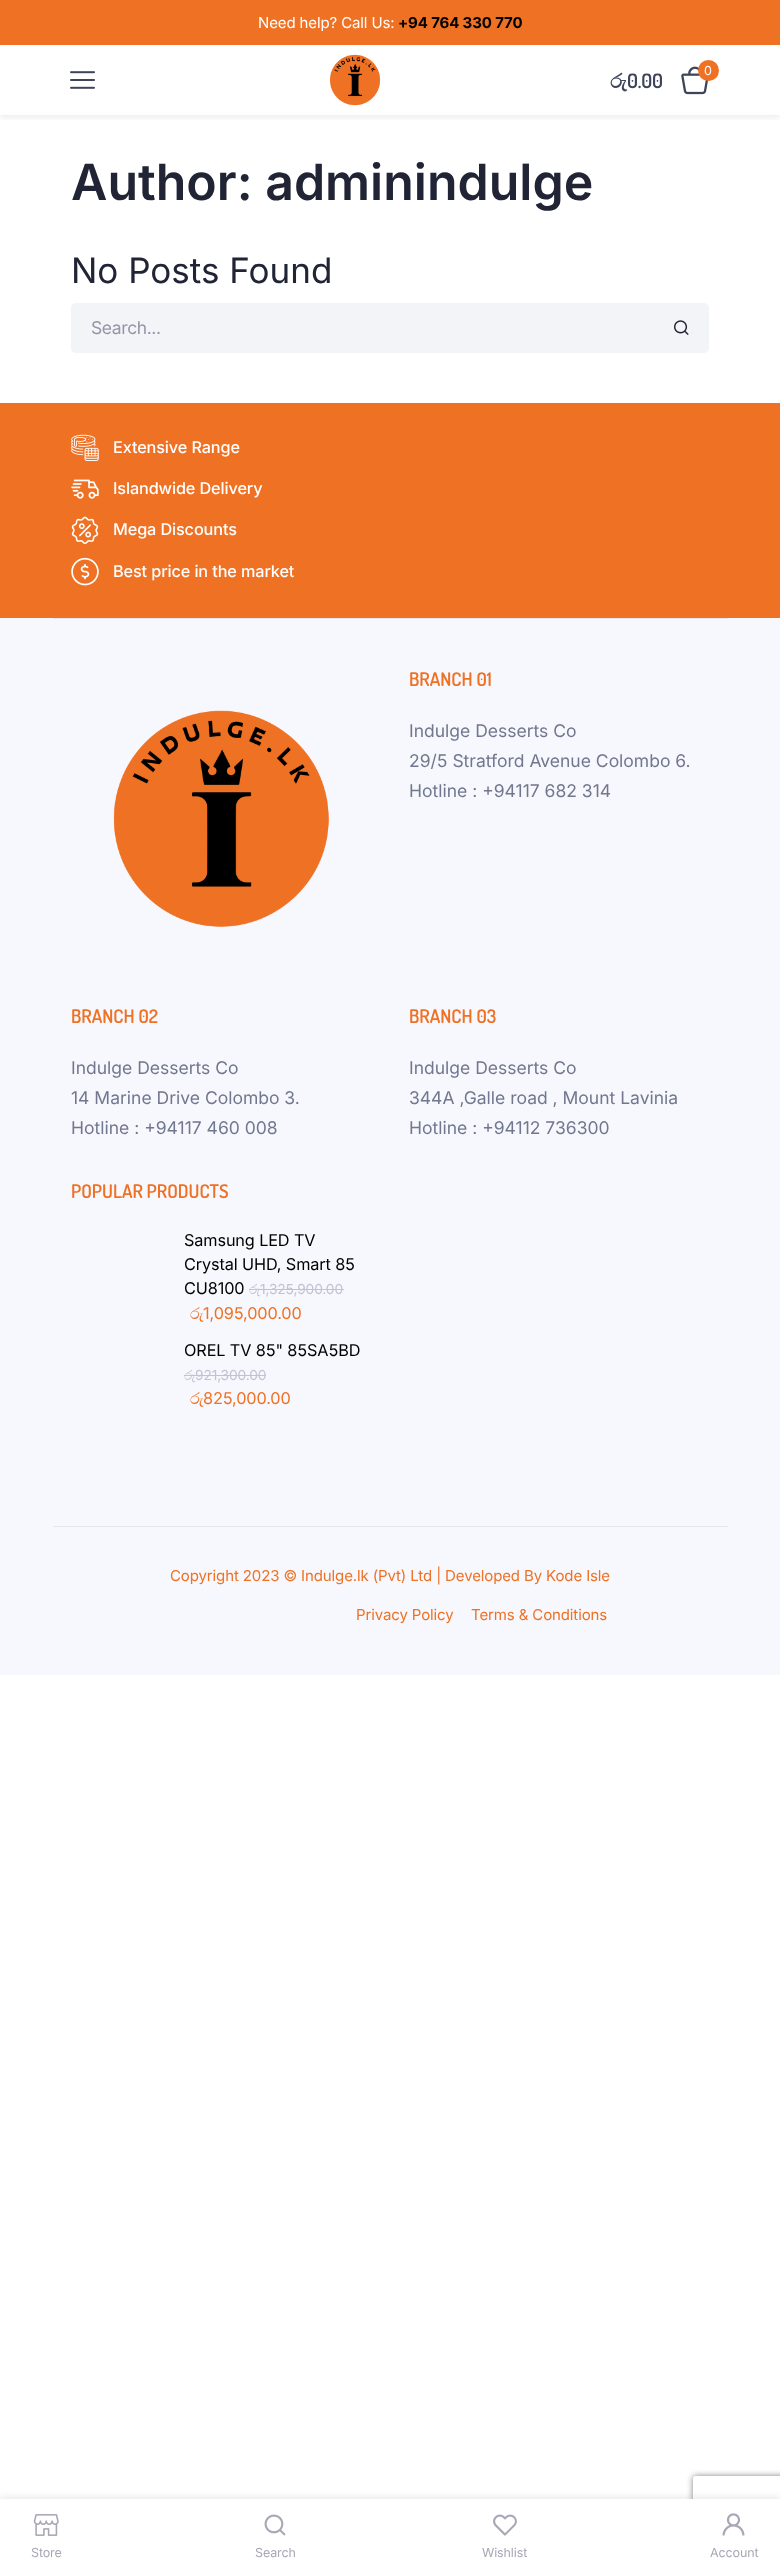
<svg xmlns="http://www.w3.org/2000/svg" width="780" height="2568">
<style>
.a{font:15px Inter;letter-spacing:-0.12px;fill:#fff}
.b{font:bold 15px Inter;letter-spacing:-0.12px;fill:#000}
.c{font:12.5px Inter;letter-spacing:-0.12px;fill:#fff}
.d{font:bold 20px FreeSerif;letter-spacing:-0.12px;fill:#3e445a}
.e{font:600 20px Dosis;letter-spacing:-0.12px;fill:#3e445a}
.f{font:12.5px Inter;letter-spacing:-0.12px;fill:#a7a7b5}
.g{font:600 50px Inter;fill:#202435}
.h{font:35px Inter;fill:#202435}
.i{font:17.5px Inter;letter-spacing:-0.4px;fill:#9595a9}
.j{font:500 16.25px Inter;letter-spacing:-0.12px;fill:#fff}
.k{font:600 18.75px Dosis;fill:#ef7124}
.l{font:17.5px Inter;fill:#71778e}
.m{font:16.25px Inter;letter-spacing:-0.12px;fill:#000}
.n{font:13.75px FreeSerif;letter-spacing:-0.12px;fill:#c2c2d3}
.o{font:13.75px Inter;letter-spacing:-0.12px;fill:#c2c2d3}
.p{font:16.25px FreeSerif;letter-spacing:-0.12px;fill:#ef7124}
.q{font:16.25px Inter;letter-spacing:-0.12px;fill:#ef7124}
.r{font:15px Inter;letter-spacing:-0.12px;fill:#ef7124}
</style>
<defs>
<clipPath id="clip1"><path d="M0 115h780v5H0z"/></clipPath>
<clipPath id="clip2"><path d="M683 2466h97v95h-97zm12.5 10h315c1.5 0 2.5 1 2.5 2.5v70c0 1.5-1 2.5-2.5 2.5h-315c-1.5 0-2.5-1-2.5-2.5v-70c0-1.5 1-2.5 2.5-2.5z" clip-rule="evenodd"/></clipPath>
</defs>
<rect width="100%" height="100%" fill="#fff"/>
<path fill="#ef7124" d="M0 0h780v45H0z"/>
<g clip-path="url(#clip1)">
<path fill="#00000012" filter="blur(3px)" d="M0 48h780v70H0z"/>
</g>
<image href="1.png" x="70" y="71" width="25" height="18"/>
<image href="2.png" x="330" y="54" width="50" height="52"/>
<image href="3.png" x="681" y="66" width="28" height="29"/>
<circle fill="#ef7124" cx="708.5" cy="70.5" r="10.5"/>
<path fill="#00000012" filter="blur(3px)" d="M0 2496h780v70H0z"/>
<g clip-path="url(#clip2)">
<rect fill="#808080" filter="blur(3px)" x="693" y="2476" width="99" height="75" rx="2.5"/>
</g>
<path fill="#fff" d="M0 2499h780v69H0z"/>
<image href="4.png" x="33" y="2514" width="26" height="22"/>
<image href="5.png" x="264" y="2514" width="22" height="22"/>
<image href="6.png" x="493" y="2514" width="24" height="22"/>
<image href="7.png" x="722" y="2513" width="23" height="23"/>
<rect fill="#f3f4f7" x="71" y="303" width="638" height="50" rx="5"/>
<image href="8.png" x="674" y="320" width="15" height="15"/>
<path fill="#ef7124" d="M0 403h780v215H0z"/>
<image href="9.png" x="71" y="434" width="28" height="27"/>
<image href="10.png" x="71" y="479" width="28" height="20"/>
<image href="11.png" x="71" y="516" width="28" height="29"/>
<image href="12.png" x="71" y="557" width="28" height="29"/>
<path fill="#f7f8fd" d="M0 618h780v1057H0z"/>
<path fill="#e4e5ee" d="M53 618h675v1H53z"/>
<image href="13.png" x="113" y="710" width="216" height="217"/>
<path fill="#c2c2d3" d="M249 1289h11v1H249z"/>
<path fill="#c2c2d3" d="M260 1289h84v1H260z"/>
<path fill="#c2c2d3" d="M184 1375h11v1H184z"/>
<path fill="#c2c2d3" d="M195 1375h71v1H195z"/>
<path fill="#e4e5ee" d="M53 1526h675v1H53z"/>
<text class="a" x="258" y="28">Need help? Call Us:</text>
<text class="b" x="398" y="28">+94 764 330 770</text>
<text class="c" x="704" y="75">0</text>
<text class="d" x="610" y="88">රු</text>
<text class="e" x="627" y="88">0.00</text>
<text class="f" x="31" y="2557">Store</text>
<text class="f" x="255" y="2557">Search</text>
<text class="f" x="482" y="2557">Wishlist</text>
<text class="f" x="710" y="2557">Account</text>
<text class="g" x="71" y="200">Author: adminindulge</text>
<text class="h" x="71" y="283">No Posts Found</text>
<text class="i" x="91" y="334">Search...</text>
<text class="j" x="113" y="453">Extensive Range</text>
<text class="j" x="113" y="494">Islandwide Delivery</text>
<text class="j" x="113" y="535">Mega Discounts</text>
<text class="j" x="113" y="577">Best price in the market</text>
<text class="k" x="409" y="686">BRANCH 01</text>
<text class="l" x="409" y="737">Indulge Desserts Co</text>
<text class="l" x="409" y="767">29/5 Stratford Avenue Colombo 6.</text>
<text class="l" x="409" y="797">Hotline : +94117 682 314</text>
<text class="k" x="71" y="1023">BRANCH 02</text>
<text class="l" x="71" y="1074">Indulge Desserts Co</text>
<text class="l" x="71" y="1104">14 Marine Drive Colombo 3.</text>
<text class="l" x="71" y="1134">Hotline : +94117 460 008</text>
<text class="k" x="409" y="1023">BRANCH 03</text>
<text class="l" x="409" y="1074">Indulge Desserts Co</text>
<text class="l" x="409" y="1104">344A ,Galle road , Mount Lavinia</text>
<text class="l" x="409" y="1134">Hotline : +94112 736300</text>
<text class="k" x="71" y="1198">POPULAR PRODUCTS</text>
<text class="m" x="184" y="1246">Samsung LED TV</text>
<text class="m" x="184" y="1270">Crystal UHD, Smart 85</text>
<text class="m" x="184" y="1294">CU8100</text>
<text class="n" x="249" y="1294">රු</text>
<text class="o" x="260" y="1294">1,325,900.00</text>
<text class="p" x="190" y="1319">රු</text>
<text class="q" x="203" y="1319">1,095,000.00</text>
<text class="m" x="184" y="1356">OREL TV 85" 85SA5BD</text>
<text class="n" x="184" y="1380">රු</text>
<text class="o" x="195" y="1380">921,300.00</text>
<text class="p" x="190" y="1404">රු</text>
<text class="q" x="203" y="1404">825,000.00</text>
<text class="r" x="170" y="1581">Copyright 2023 © Indulge.lk (Pvt) Ltd | Developed By Kode Isle</text>
<text class="r" x="356" y="1620">Privacy Policy</text>
<text class="r" x="471" y="1620">Terms &amp; Conditions</text>
</svg>
